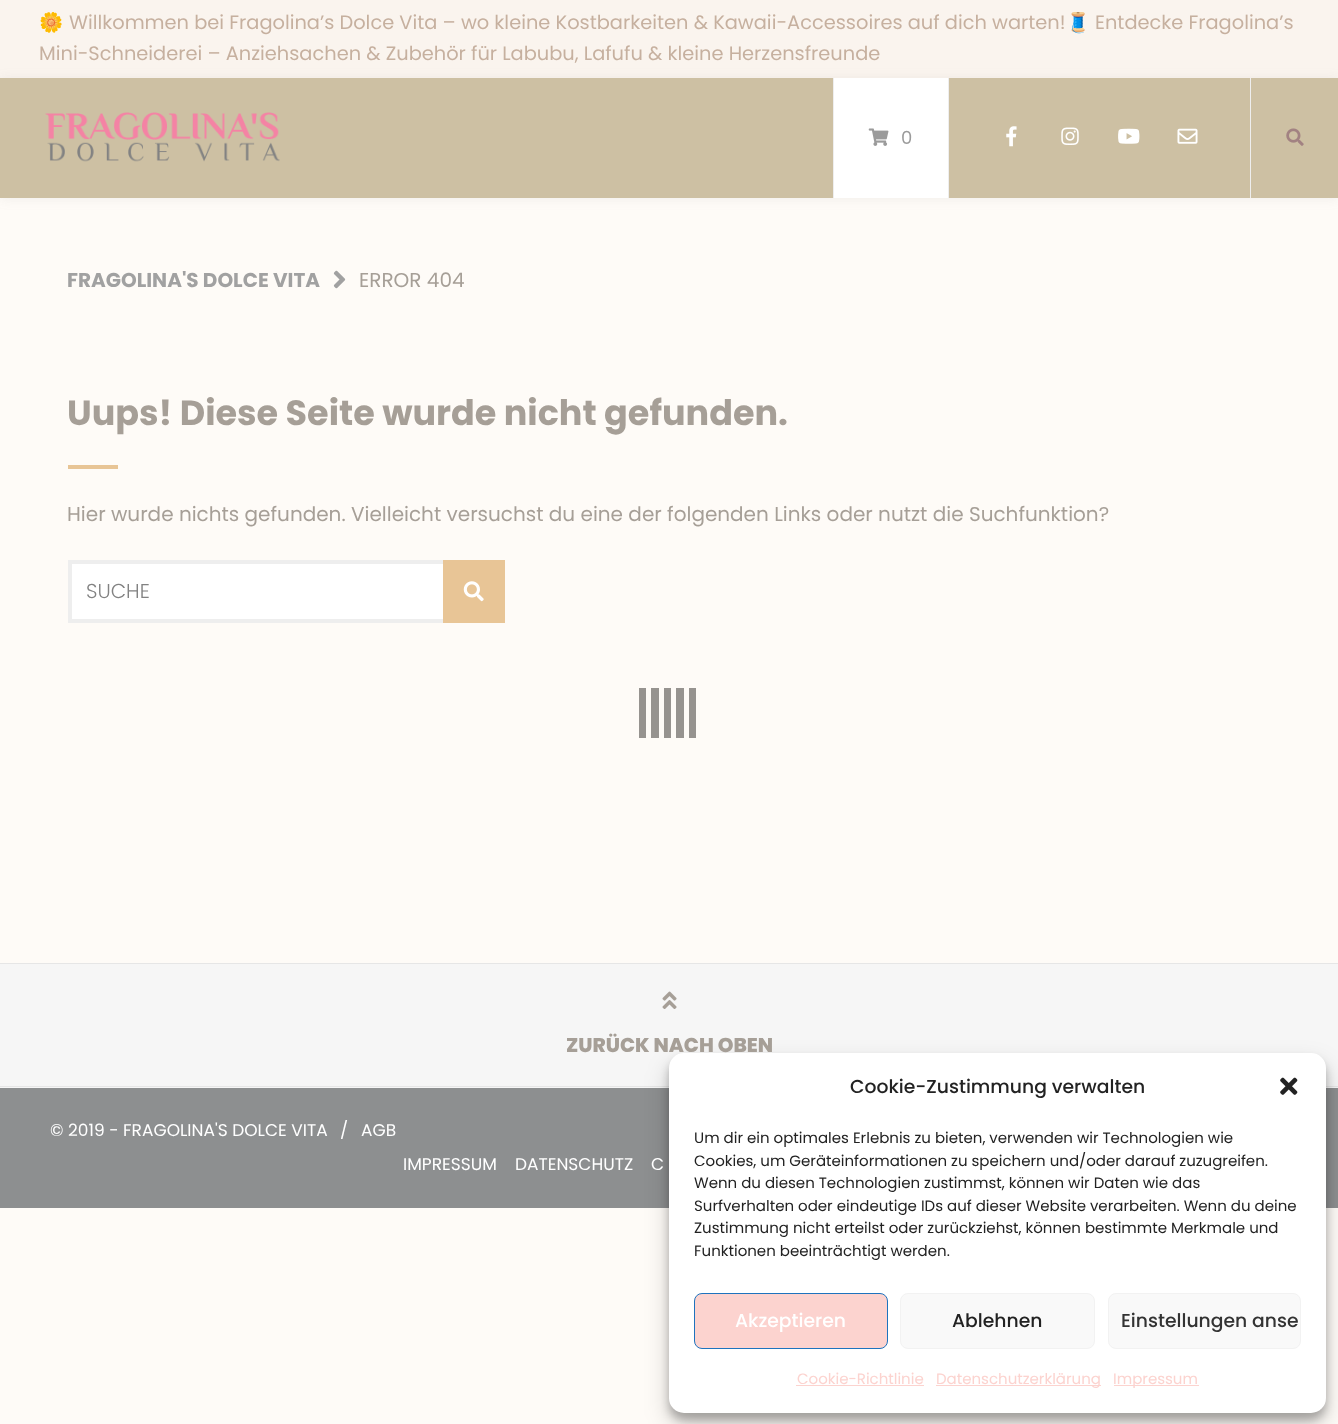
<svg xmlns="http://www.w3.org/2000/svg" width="1338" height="1424">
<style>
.a{font:19.4px Noto Color Emoji;fill:#c6b09f}
.b{font:19.4px Poppins;fill:#c6b09f}
.c{font:18px Poppins;fill:#9b9b9b}
.d{font:bold 20px Poppins;fill:#a1a1a1}
.e{font:20px Poppins;fill:#a69f97}
.f{font:bold 35px Poppins;fill:#a69f97}
.g{font:300 20px Poppins;fill:#828282}
.h{font:800 20px Poppins;fill:#a69f97}
.i{font:17px Poppins;fill:#fff}
.j{font:500 18.75px Poppins;fill:#222}
.k{font:15px Poppins;fill:#222}
.l{font:500 18.75px Poppins;fill:#fff}
.m{font:500 18.75px Poppins;fill:#333}
.n{font:15px Poppins;fill:#fcd3cf}
</style>
<rect width="100%" height="100%" fill="#fefbf7"/>
<path fill="#faf4ee" d="M0 0h1338v78H0z"/>
<path fill="#8282821a" filter="blur(6px)" d="M0 79h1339v120H0z"/>
<path fill="#cdc0a3" d="M0 78h1338v120H0z"/>
<image href="1.png" x="45" y="112" width="235" height="50"/>
<path fill="#fff" d="M834 78h114v120H834z"/>
<path fill="#eee" d="M948 78h1v120H948z"/>
<path fill="#eee" d="M833 78h1v120H833z"/>
<image href="2.png" x="868" y="128" width="21" height="18"/>
<path fill="#eee" d="M1250 78h1v120H1250z"/>
<image href="3.png" x="1006" y="126" width="11" height="21"/>
<image href="4.png" x="1061" y="127" width="18" height="18"/>
<image href="5.png" x="1118" y="128" width="22" height="16"/>
<image href="6.png" x="1177" y="128" width="21" height="16"/>
<image href="7.png" x="1286" y="128" width="18" height="18"/>
<image href="8.png" x="333" y="270" width="13" height="19"/>
<path fill="#e8c596" d="M68 465h50v4H68z"/>
<path fill="#fff" d="M72 564h371v55H72z"/>
<path fill="#eee" d="M68 560h375v4H68z"/>
<path fill="#eee" d="M68 619h375v4H68z"/>
<path fill="#eee" d="M68 560h4v63H68z"/>
<path fill="#e8c596" d="M443 560h62v63H443z"/>
<image href="9.png" x="463" y="581" width="21" height="21"/>
<path fill="#f6f6f6" d="M0 964h1338v124H0z"/>
<path fill="#e6e6e6" d="M0 963h1338v1H0z"/>
<path fill="#e6e6e6" d="M0 1086h1338v1H0z"/>
<image href="10.png" x="662" y="991" width="15" height="18"/>
<path fill="#8d8f90" d="M0 1088h1338v120H0z"/>
<path fill="#96938f" d="M639 688h7v50H639z"/>
<path fill="#96938f" d="M651 688h8v50H651z"/>
<path fill="#96938f" d="M664 688h7v50H664z"/>
<path fill="#96938f" d="M676 688h8v50H676z"/>
<path fill="#96938f" d="M689 688h7v50H689z"/>
<rect fill="#0000003b" filter="blur(4px)" x="669" y="1060" width="657" height="360" rx="15"/>
<rect fill="#00000030" filter="blur(12.5px)" x="669" y="1065" width="657" height="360" rx="15"/>
<rect fill="#fff" x="669" y="1053" width="657" height="360" rx="15"/>
<image href="11.png" x="1280" y="1077" width="18" height="18"/>
<rect fill="#fcd3cf" stroke="#1e73be" x="694.5" y="1293.5" width="193" height="55" rx="7.5"/>
<rect fill="#f9f9f9" stroke="#f2f2f2" x="900.5" y="1293.5" width="194" height="55" rx="7.5"/>
<rect fill="#f9f9f9" stroke="#f2f2f2" x="1108.5" y="1293.5" width="192" height="55" rx="7.5"/>
<path fill="#fcd3cf" d="M796 1385h128v1H796z"/>
<path fill="#fcd3cf" d="M936 1385h165v1H936z"/>
<path fill="#fcd3cf" d="M1114 1385h85v1H1114z"/>
<text class="a" x="39" y="29">🌼</text>
<text class="b" x="69" y="29">Willkommen bei Fragolina’s Dolce Vita – wo kleine Kostbarkeiten &amp; Kawaii-Accessoires auf dich warten!</text>
<text class="a" x="1066" y="29">🧵</text>
<text class="b" x="1095" y="29">Entdecke Fragolina’s</text>
<text class="b" x="39" y="60">Mini-Schneiderei – Anziehsachen &amp; Zubehör für Labubu, Lafufu &amp; kleine Herzensfreunde</text>
<text class="c" x="901" y="144">0</text>
<text class="d" x="67" y="287">FRAGOLINA'S DOLCE VITA</text>
<text class="e" x="359" y="287">ERROR 404</text>
<text class="f" x="67" y="425">Uups! Diese Seite wurde nicht gefunden.</text>
<text class="e" x="67" y="521">Hier wurde nichts gefunden. Vielleicht versuchst du eine der folgenden Links oder nutzt die Suchfunktion?</text>
<text class="g" x="86" y="598">SUCHE</text>
<text class="h" x="566" y="1052">ZURÜCK NACH OBEN</text>
<text class="i" x="50" y="1136">© 2019 - FRAGOLINA'S DOLCE VITA</text>
<text class="i" x="340" y="1136">/</text>
<text class="i" x="361" y="1136">AGB</text>
<text class="i" x="403" y="1170">IMPRESSUM</text>
<text class="i" x="515" y="1170">DATENSCHUTZ</text>
<text class="i" x="651" y="1170">C</text>
<text class="j" x="850" y="1093">Cookie-Zustimmung verwalten</text>
<text class="k" x="694" y="1143">Um dir ein optimales Erlebnis zu bieten, verwenden wir Technologien wie</text>
<text class="k" x="694" y="1166">Cookies, um Geräteinformationen zu speichern und/oder darauf zuzugreifen.</text>
<text class="k" x="694" y="1188">Wenn du diesen Technologien zustimmst, können wir Daten wie das</text>
<text class="k" x="694" y="1211">Surfverhalten oder eindeutige IDs auf dieser Website verarbeiten. Wenn du deine</text>
<text class="k" x="694" y="1233">Zustimmung nicht erteilst oder zurückziehst, können bestimmte Merkmale und</text>
<text class="k" x="694" y="1256">Funktionen beeinträchtigt werden.</text>
<text class="l" x="735" y="1327">Akzeptieren</text>
<text class="j" x="952" y="1327">Ablehnen</text>
<text class="m" x="1121" y="1327">Einstellungen anse</text>
<text class="n" x="797" y="1384">Cookie-Richtlinie</text>
<text class="n" x="936" y="1384">Datenschutzerklärung</text>
<text class="n" x="1113" y="1384">Impressum</text>
</svg>
